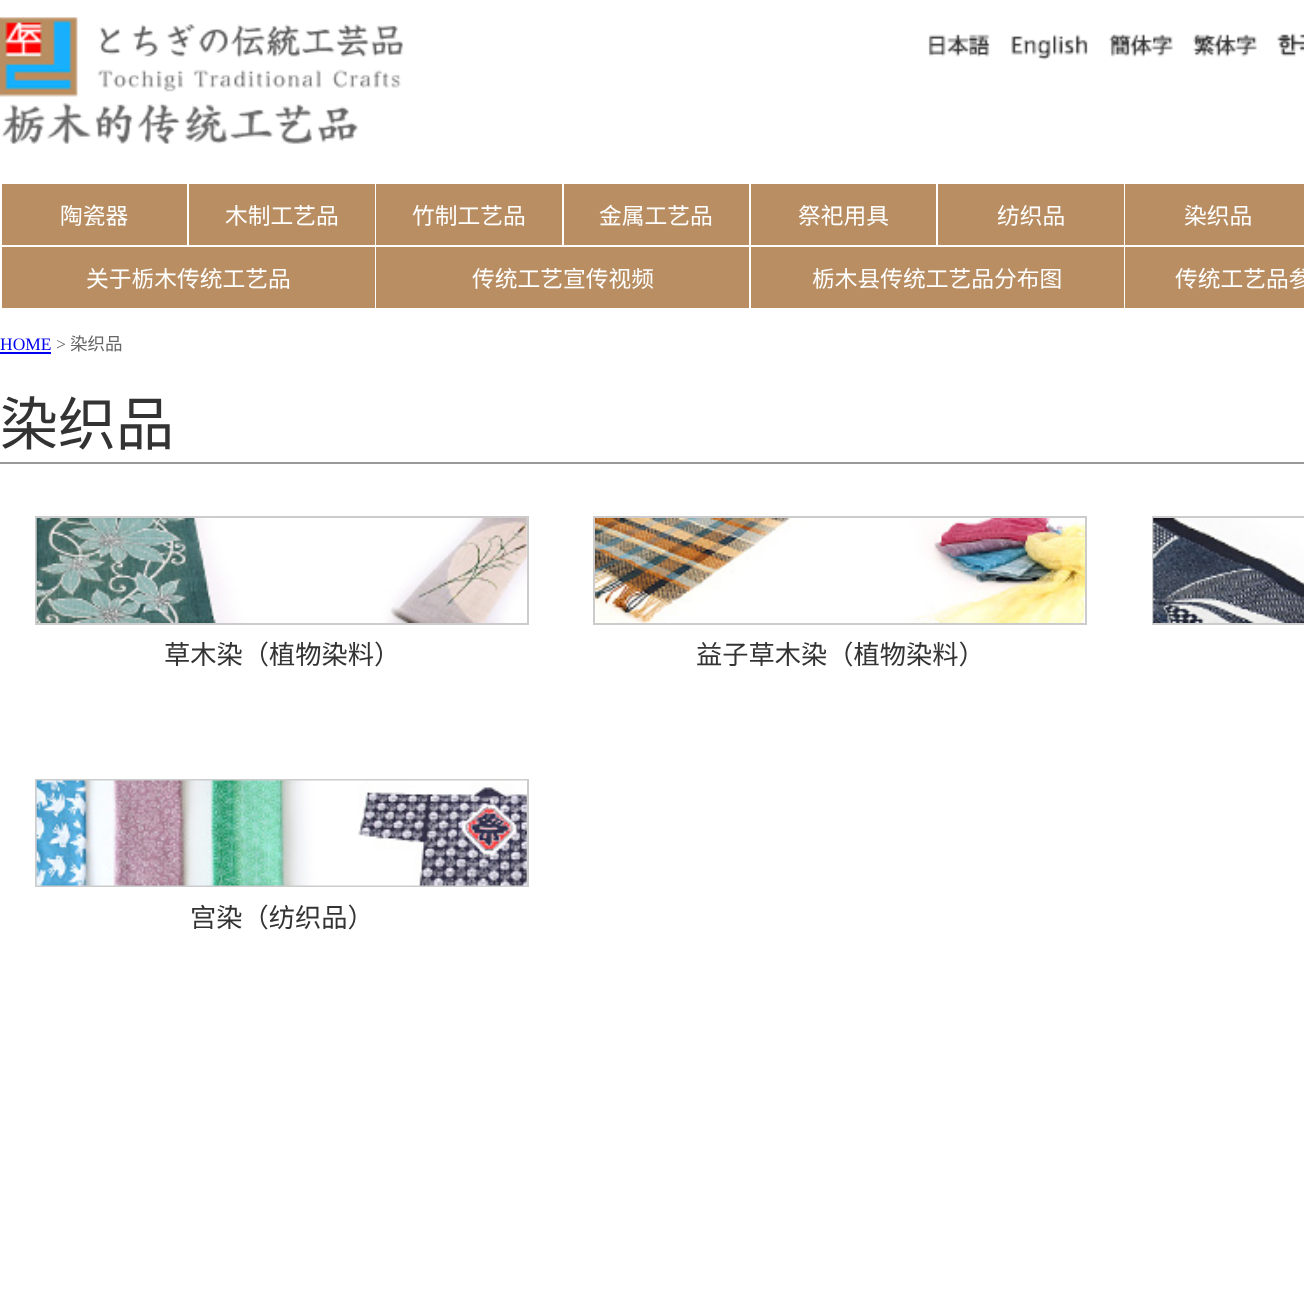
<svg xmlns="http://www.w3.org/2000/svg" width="1304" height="1308">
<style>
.a{font:22.75px Noto Sans CJK SC;fill:#fff}
.b{font:17.5px Liberation Serif;fill:#00e}
.c{font:17.5px Liberation Serif;fill:#666}
.d{font:17.5px Noto Sans CJK SC;fill:#666}
.e{font:58px Noto Sans CJK SC;fill:#333}
.f{font:26.25px Noto Sans CJK SC;fill:#333}
</style>
<rect width="100%" height="100%" fill="#fff"/>
<image href="1.png" x="0" y="17" width="403" height="127"/>
<image href="2.png" x="928" y="34" width="62" height="23"/>
<image href="3.png" x="1011" y="34" width="77" height="26"/>
<image href="4.png" x="1109" y="34" width="64" height="23"/>
<image href="5.png" x="1193" y="34" width="64" height="23"/>
<image href="6.png" x="1277" y="33" width="27" height="24"/>
<path fill="#b88e62" d="M2 184h185v61H2z"/>
<path fill="#b88e62" d="M189 184h186v61H189z"/>
<path fill="#b88e62" d="M376 184h186v61H376z"/>
<path fill="#b88e62" d="M564 184h185v61H564z"/>
<path fill="#b88e62" d="M751 184h185v61H751z"/>
<path fill="#b88e62" d="M938 184h186v61H938z"/>
<path fill="#b88e62" d="M1125 184h179v61H1125z"/>
<path fill="#b88e62" d="M2 247h373v61H2z"/>
<path fill="#b88e62" d="M376 247h373v61H376z"/>
<path fill="#b88e62" d="M751 247h373v61H751z"/>
<path fill="#b88e62" d="M1125 247h179v61H1125z"/>
<path fill="#00e" d="M0 352h51v2H0z"/>
<path fill="#999" d="M0 462h1304v2H0z"/>
<path fill="none" stroke="#ccc" stroke-width="2" d="M1153 517h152v107H1153z"/>
<image href="7.png" x="1153" y="518" width="151" height="105"/>
<path fill="none" stroke="#ccc" stroke-width="2" d="M36 517h492v107H36z"/>
<image href="8.png" x="36" y="518" width="491" height="105"/>
<path fill="none" stroke="#ccc" stroke-width="2" d="M594 517h492v107H594z"/>
<image href="9.png" x="595" y="518" width="490" height="105"/>
<path fill="none" stroke="#ccc" stroke-width="2" d="M36 780h492v106H36z"/>
<image href="10.png" x="36" y="780" width="491" height="106"/>
<text class="a" x="60" y="224">陶瓷器</text>
<text class="a" x="225" y="224">木制工艺品</text>
<text class="a" x="412" y="224">竹制工艺品</text>
<text class="a" x="599" y="224">金属工艺品</text>
<text class="a" x="798" y="224">祭祀用具</text>
<text class="a" x="997" y="224">纺织品</text>
<text class="a" x="1184" y="224">染织品</text>
<text class="a" x="86" y="287">关于栃木传统工艺品</text>
<text class="a" x="472" y="287">传统工艺宣传视频</text>
<text class="a" x="812" y="287">栃木县传统工艺品分布图</text>
<text class="a" x="1175" y="287">传统工艺品参</text>
<text class="b" x="0" y="350">HOME</text>
<text class="c" x="56" y="350">&gt;</text>
<text class="d" x="70" y="350">染织品</text>
<text class="e" x="0" y="445">染织品</text>
<text class="f" x="164" y="664">草木染（植物染料）</text>
<text class="f" x="696" y="664">益子草木染（植物染料）</text>
<text class="f" x="190" y="927">宫染（纺织品）</text>
</svg>
